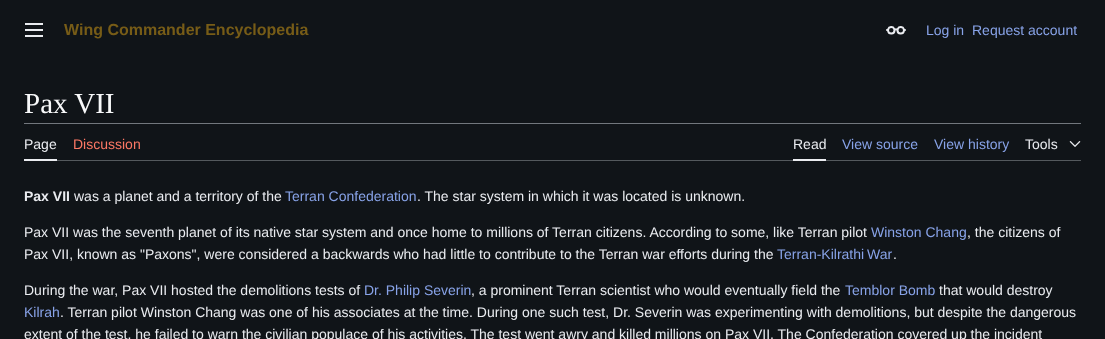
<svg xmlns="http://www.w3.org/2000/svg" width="1105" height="339">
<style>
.a{font:bold 16px Liberation Sans;fill:#775c17}
.b{font:14px Liberation Sans;fill:#88a3e8}
.c{font:29px Liberation Serif;fill:#f8f9fa}
.d{font:14px Liberation Sans;fill:#eaecf0}
.e{font:14px Liberation Sans;fill:#fd7865}
.f{font:bold 14px Liberation Sans;fill:#eaecf0}
</style>
<rect width="100%" height="100%" fill="#101418"/>
<image href="1.png" x="25" y="23" width="18" height="14"/>
<image href="2.png" x="886" y="26" width="20" height="9"/>
<path fill="#72777d" d="M24 123h1057v1H24z"/>
<path fill="#54595d" d="M57 160h1024v1H57z"/>
<path fill="#eaecf0" d="M24 159h33v2H24z"/>
<path fill="#eaecf0" d="M793 159h33v2H793z"/>
<image href="3.png" x="1069" y="141" width="12" height="6"/>
<text class="a" x="64" y="35">Wing Commander Encyclopedia</text>
<text class="b" x="926" y="35">Log in</text>
<text class="b" x="972" y="35">Request account</text>
<text class="c" x="24" y="113">Pax VII</text>
<text class="d" x="24" y="149">Page</text>
<text class="e" x="73" y="149">Discussion</text>
<text class="d" x="793" y="149">Read</text>
<text class="b" x="842" y="149">View source</text>
<text class="b" x="934" y="149">View history</text>
<text class="d" x="1025" y="149">Tools</text>
<text class="f" x="24" y="201">Pax VII</text>
<text class="d" x="74" y="201">was a planet and a territory of the</text>
<text class="b" x="285" y="201">Terran Confederation</text>
<text class="d" x="417" y="201">. The star system in which it was located is unknown.</text>
<text class="d" x="24" y="237">Pax VII was the seventh planet of its native star system and once home to millions of Terran citizens. According to some, like Terran pilot</text>
<text class="b" x="871" y="237">Winston Chang</text>
<text class="d" x="967" y="237">, the citizens of</text>
<text class="d" x="24" y="259">Pax VII, known as "Paxons", were considered a backwards who had little to contribute to the Terran war efforts during the</text>
<text class="b" x="777" y="259" word-spacing="-1">Terran-Kilrathi War</text>
<text class="d" x="893" y="259">.</text>
<text class="d" x="24" y="295">During the war, Pax VII hosted the demolitions tests of</text>
<text class="b" x="364" y="295">Dr. Philip Severin</text>
<text class="d" x="471" y="295">, a prominent Terran scientist who would eventually field the</text>
<text class="b" x="845" y="295">Temblor Bomb</text>
<text class="d" x="939" y="295">that would destroy</text>
<text class="b" x="24" y="317">Kilrah</text>
<text class="d" x="60" y="317">. Terran pilot Winston Chang was one of his associates at the time. During one such test, Dr. Severin was experimenting with demolitions, but despite the dangerous</text>
<text class="d" x="24" y="339">extent of the test, he failed to warn the civilian populace of his activities. The test went awry and killed millions on Pax VII. The Confederation covered up the incident</text>
</svg>
